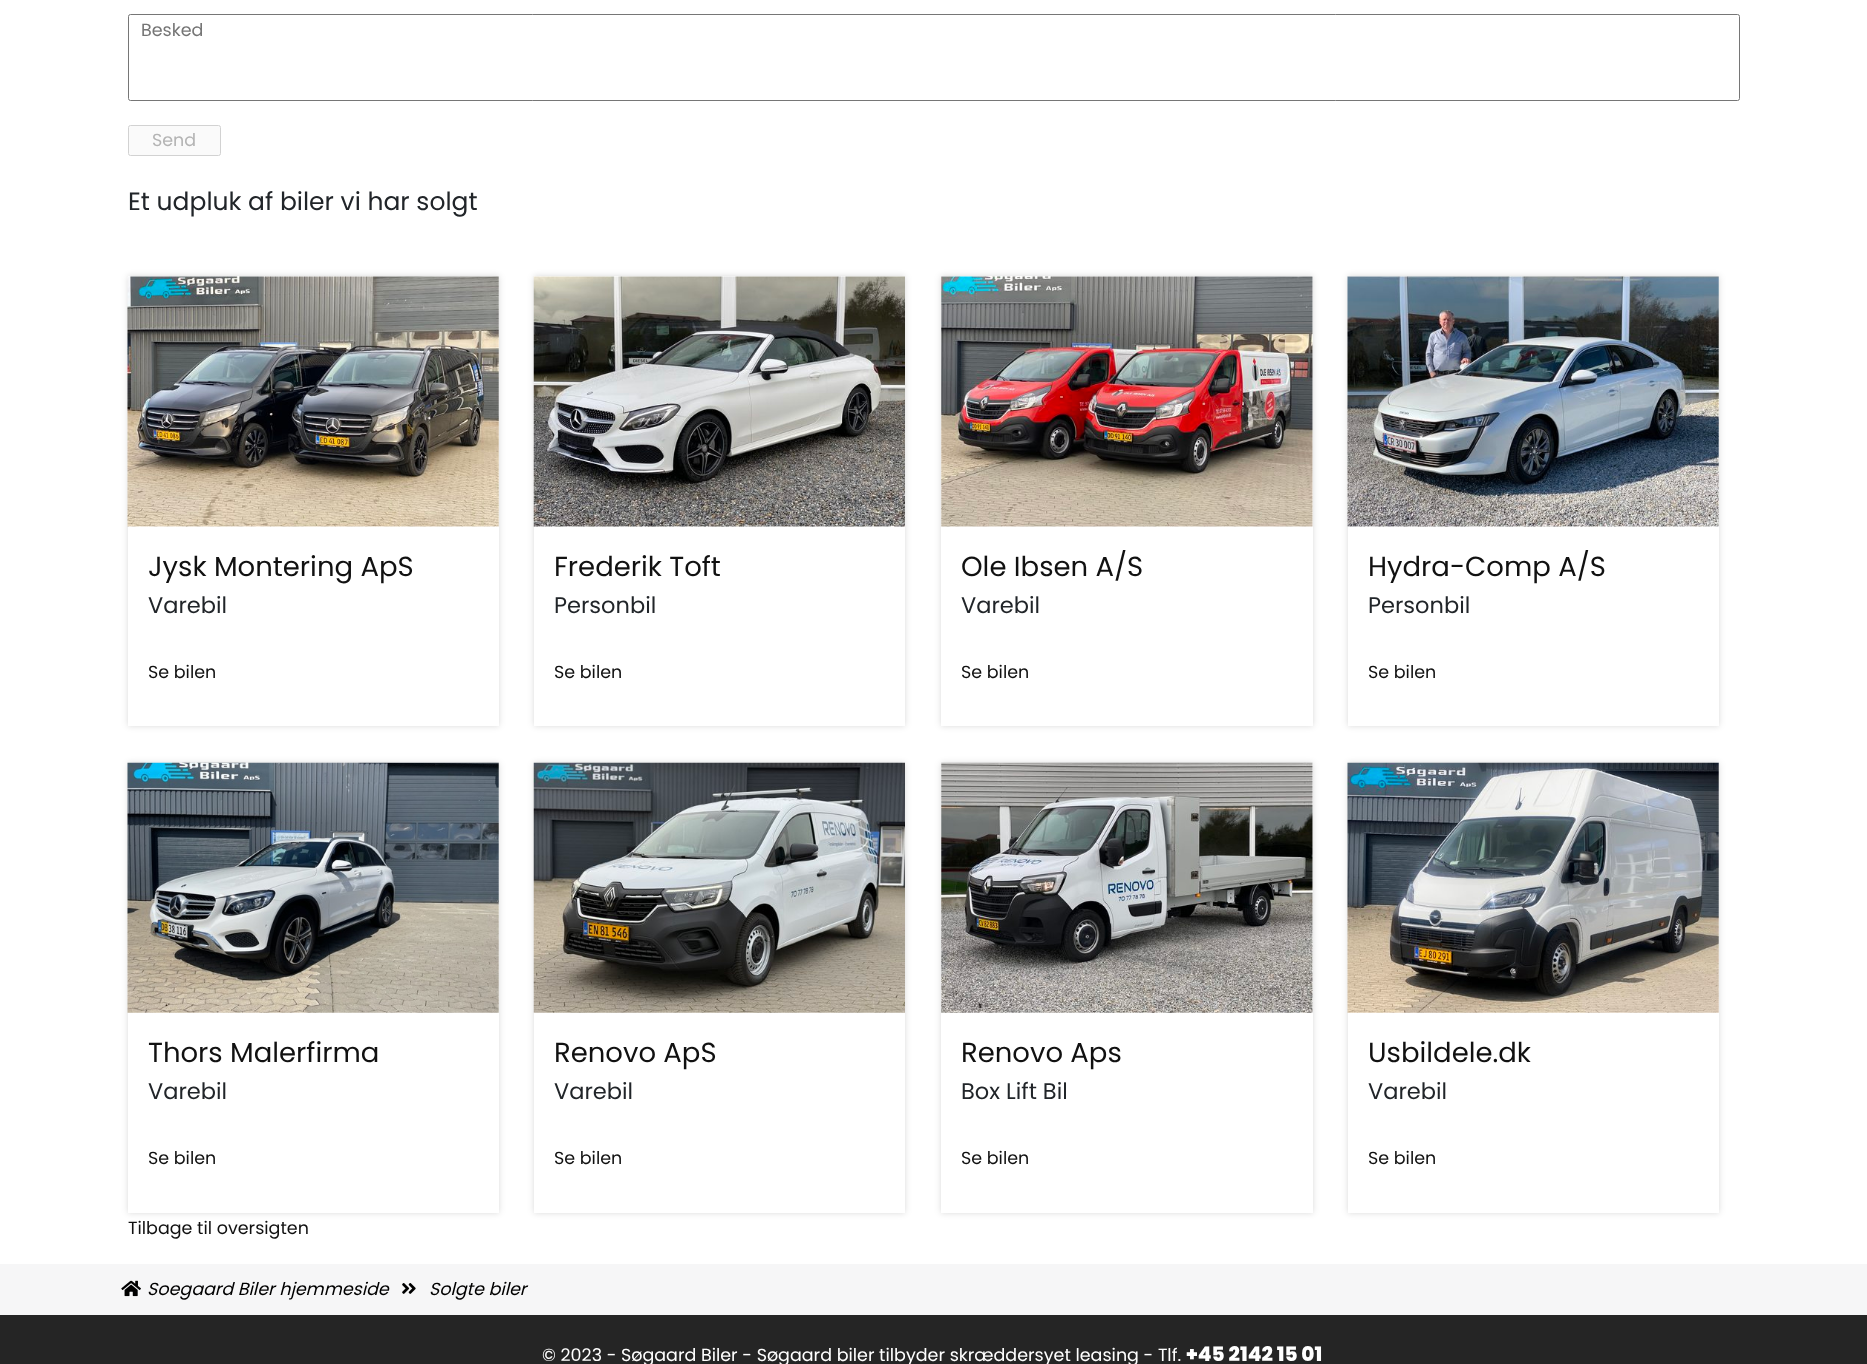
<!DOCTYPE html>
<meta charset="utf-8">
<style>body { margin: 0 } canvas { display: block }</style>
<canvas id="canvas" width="1867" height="1364"></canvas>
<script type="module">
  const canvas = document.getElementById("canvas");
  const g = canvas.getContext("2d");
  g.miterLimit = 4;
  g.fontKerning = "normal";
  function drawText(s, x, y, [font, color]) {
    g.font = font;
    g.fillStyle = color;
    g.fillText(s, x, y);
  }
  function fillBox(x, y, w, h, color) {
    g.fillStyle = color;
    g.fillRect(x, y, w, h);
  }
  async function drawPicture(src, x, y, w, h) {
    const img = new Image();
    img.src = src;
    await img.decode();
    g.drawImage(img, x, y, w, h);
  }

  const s1 = ["17.5px Poppins", "#757575"];
  const s2 = ["17.5px Poppins", "#B4B4B4"];
  const s3 = ["25px Poppins", "#212529"];
  const s4 = ["27.5px Poppins", "#111111"];
  const s5 = ["22.5px Poppins", "#212529"];
  const s6 = ["17.5px Poppins", "#111111"];
  const s7 = ["italic 17.5px Poppins", "#000000"];
  const s8 = ["17.5px Poppins", "#FFFFFF"];
  const s9 = ["800 20px Poppins", "#FFFFFF"];

  fillBox(0, 0, 1867, 1364, "#FFFFFF");
  g.beginPath();
  g.roundRect(128.5, 14.5, 1611, 86, 2);
  g.strokeStyle = "#767676";
  g.stroke();
  drawText("Besked", 141, 36, s1);
  g.fillStyle = "#FAFAFA";
  g.beginPath();
  g.roundRect(128.5, 125.5, 92, 30, 2);
  g.fill();
  g.strokeStyle = "#D2D2D2";
  g.stroke();
  drawText("Send", 152, 146, s2);
  drawText("Et udpluk af biler vi har solgt", 128, 210, s3);
  g.fillStyle = "rgba(0, 0, 0, 0.15)";
  g.filter = "blur(3px)";
  g.beginPath();
  g.rect(128, 276, 371, 450);
  g.fill();
  g.filter = "none";
  fillBox(128, 276, 371, 450, "#FFFFFF");
  await drawPicture("pic1.png", 127, 276, 372, 251);
  drawText("Jysk Montering ApS", 148, 576, s4);
  drawText("Varebil", 148, 613, s5);
  drawText("Se bilen", 148, 678, s6);
  g.fillStyle = "rgba(0, 0, 0, 0.15)";
  g.filter = "blur(3px)";
  g.beginPath();
  g.rect(534, 276, 371, 450);
  g.fill();
  g.filter = "none";
  fillBox(534, 276, 371, 450, "#FFFFFF");
  await drawPicture("pic2.png", 533, 276, 372, 251);
  drawText("Frederik Toft", 554, 576, s4);
  drawText("Personbil", 554, 613, s5);
  drawText("Se bilen", 554, 678, s6);
  g.fillStyle = "rgba(0, 0, 0, 0.15)";
  g.filter = "blur(3px)";
  g.beginPath();
  g.rect(941, 276, 372, 450);
  g.fill();
  g.filter = "none";
  fillBox(941, 276, 372, 450, "#FFFFFF");
  await drawPicture("pic3.png", 941, 276, 372, 251);
  drawText("Ole Ibsen A/S", 961, 576, s4);
  drawText("Varebil", 961, 613, s5);
  drawText("Se bilen", 961, 678, s6);
  g.fillStyle = "rgba(0, 0, 0, 0.15)";
  g.filter = "blur(3px)";
  g.beginPath();
  g.rect(1348, 276, 371, 450);
  g.fill();
  g.filter = "none";
  fillBox(1348, 276, 371, 450, "#FFFFFF");
  await drawPicture("pic4.png", 1347, 276, 372, 251);
  drawText("Hydra-Comp A/S", 1368, 576, s4);
  drawText("Personbil", 1368, 613, s5);
  drawText("Se bilen", 1368, 678, s6);
  g.fillStyle = "rgba(0, 0, 0, 0.15)";
  g.filter = "blur(3px)";
  g.beginPath();
  g.rect(128, 763, 371, 450);
  g.fill();
  g.filter = "none";
  fillBox(128, 763, 371, 450, "#FFFFFF");
  await drawPicture("pic5.png", 127, 762, 372, 251);
  drawText("Thors Malerfirma", 148, 1062, s4);
  drawText("Varebil", 148, 1099, s5);
  drawText("Se bilen", 148, 1164, s6);
  g.fillStyle = "rgba(0, 0, 0, 0.15)";
  g.filter = "blur(3px)";
  g.beginPath();
  g.rect(534, 763, 371, 450);
  g.fill();
  g.filter = "none";
  fillBox(534, 1012, 371, 201, "#FFFFFF");
  await drawPicture("pic6.png", 533, 762, 372, 251);
  drawText("Renovo ApS", 554, 1062, s4);
  drawText("Varebil", 554, 1099, s5);
  drawText("Se bilen", 554, 1164, s6);
  g.fillStyle = "rgba(0, 0, 0, 0.15)";
  g.filter = "blur(3px)";
  g.beginPath();
  g.rect(941, 763, 372, 450);
  g.fill();
  g.filter = "none";
  fillBox(941, 763, 372, 450, "#FFFFFF");
  await drawPicture("pic7.png", 941, 762, 372, 251);
  drawText("Renovo Aps", 961, 1062, s4);
  drawText("Box Lift Bil", 961, 1099, s5);
  drawText("Se bilen", 961, 1164, s6);
  g.fillStyle = "rgba(0, 0, 0, 0.15)";
  g.filter = "blur(3px)";
  g.beginPath();
  g.rect(1348, 763, 371, 450);
  g.fill();
  g.filter = "none";
  fillBox(1348, 763, 371, 450, "#FFFFFF");
  await drawPicture("pic8.png", 1347, 762, 372, 251);
  drawText("Usbildele.dk", 1368, 1062, s4);
  drawText("Varebil", 1368, 1099, s5);
  drawText("Se bilen", 1368, 1164, s6);
  drawText("Tilbage til oversigten", 128, 1234, s6);
  fillBox(0, 1264, 1867, 51, "#F6F6F7");
  await drawPicture("pic9.png", 121, 1280, 20, 17);
  drawText("Soegaard Biler hjemmeside", 147, 1295, s7);
  await drawPicture("pic10.png", 402, 1283, 14, 11);
  drawText("Solgte biler", 429, 1295, s7);
  fillBox(0, 1315, 1867, 49, "#252525");
  drawText("© 2023 - Søgaard Biler - Søgaard biler tilbyder skræddersyet leasing - Tlf.", 542, 1361, s8);
  drawText("+45 2142 15 01", 1186, 1361, s9);
</script>
